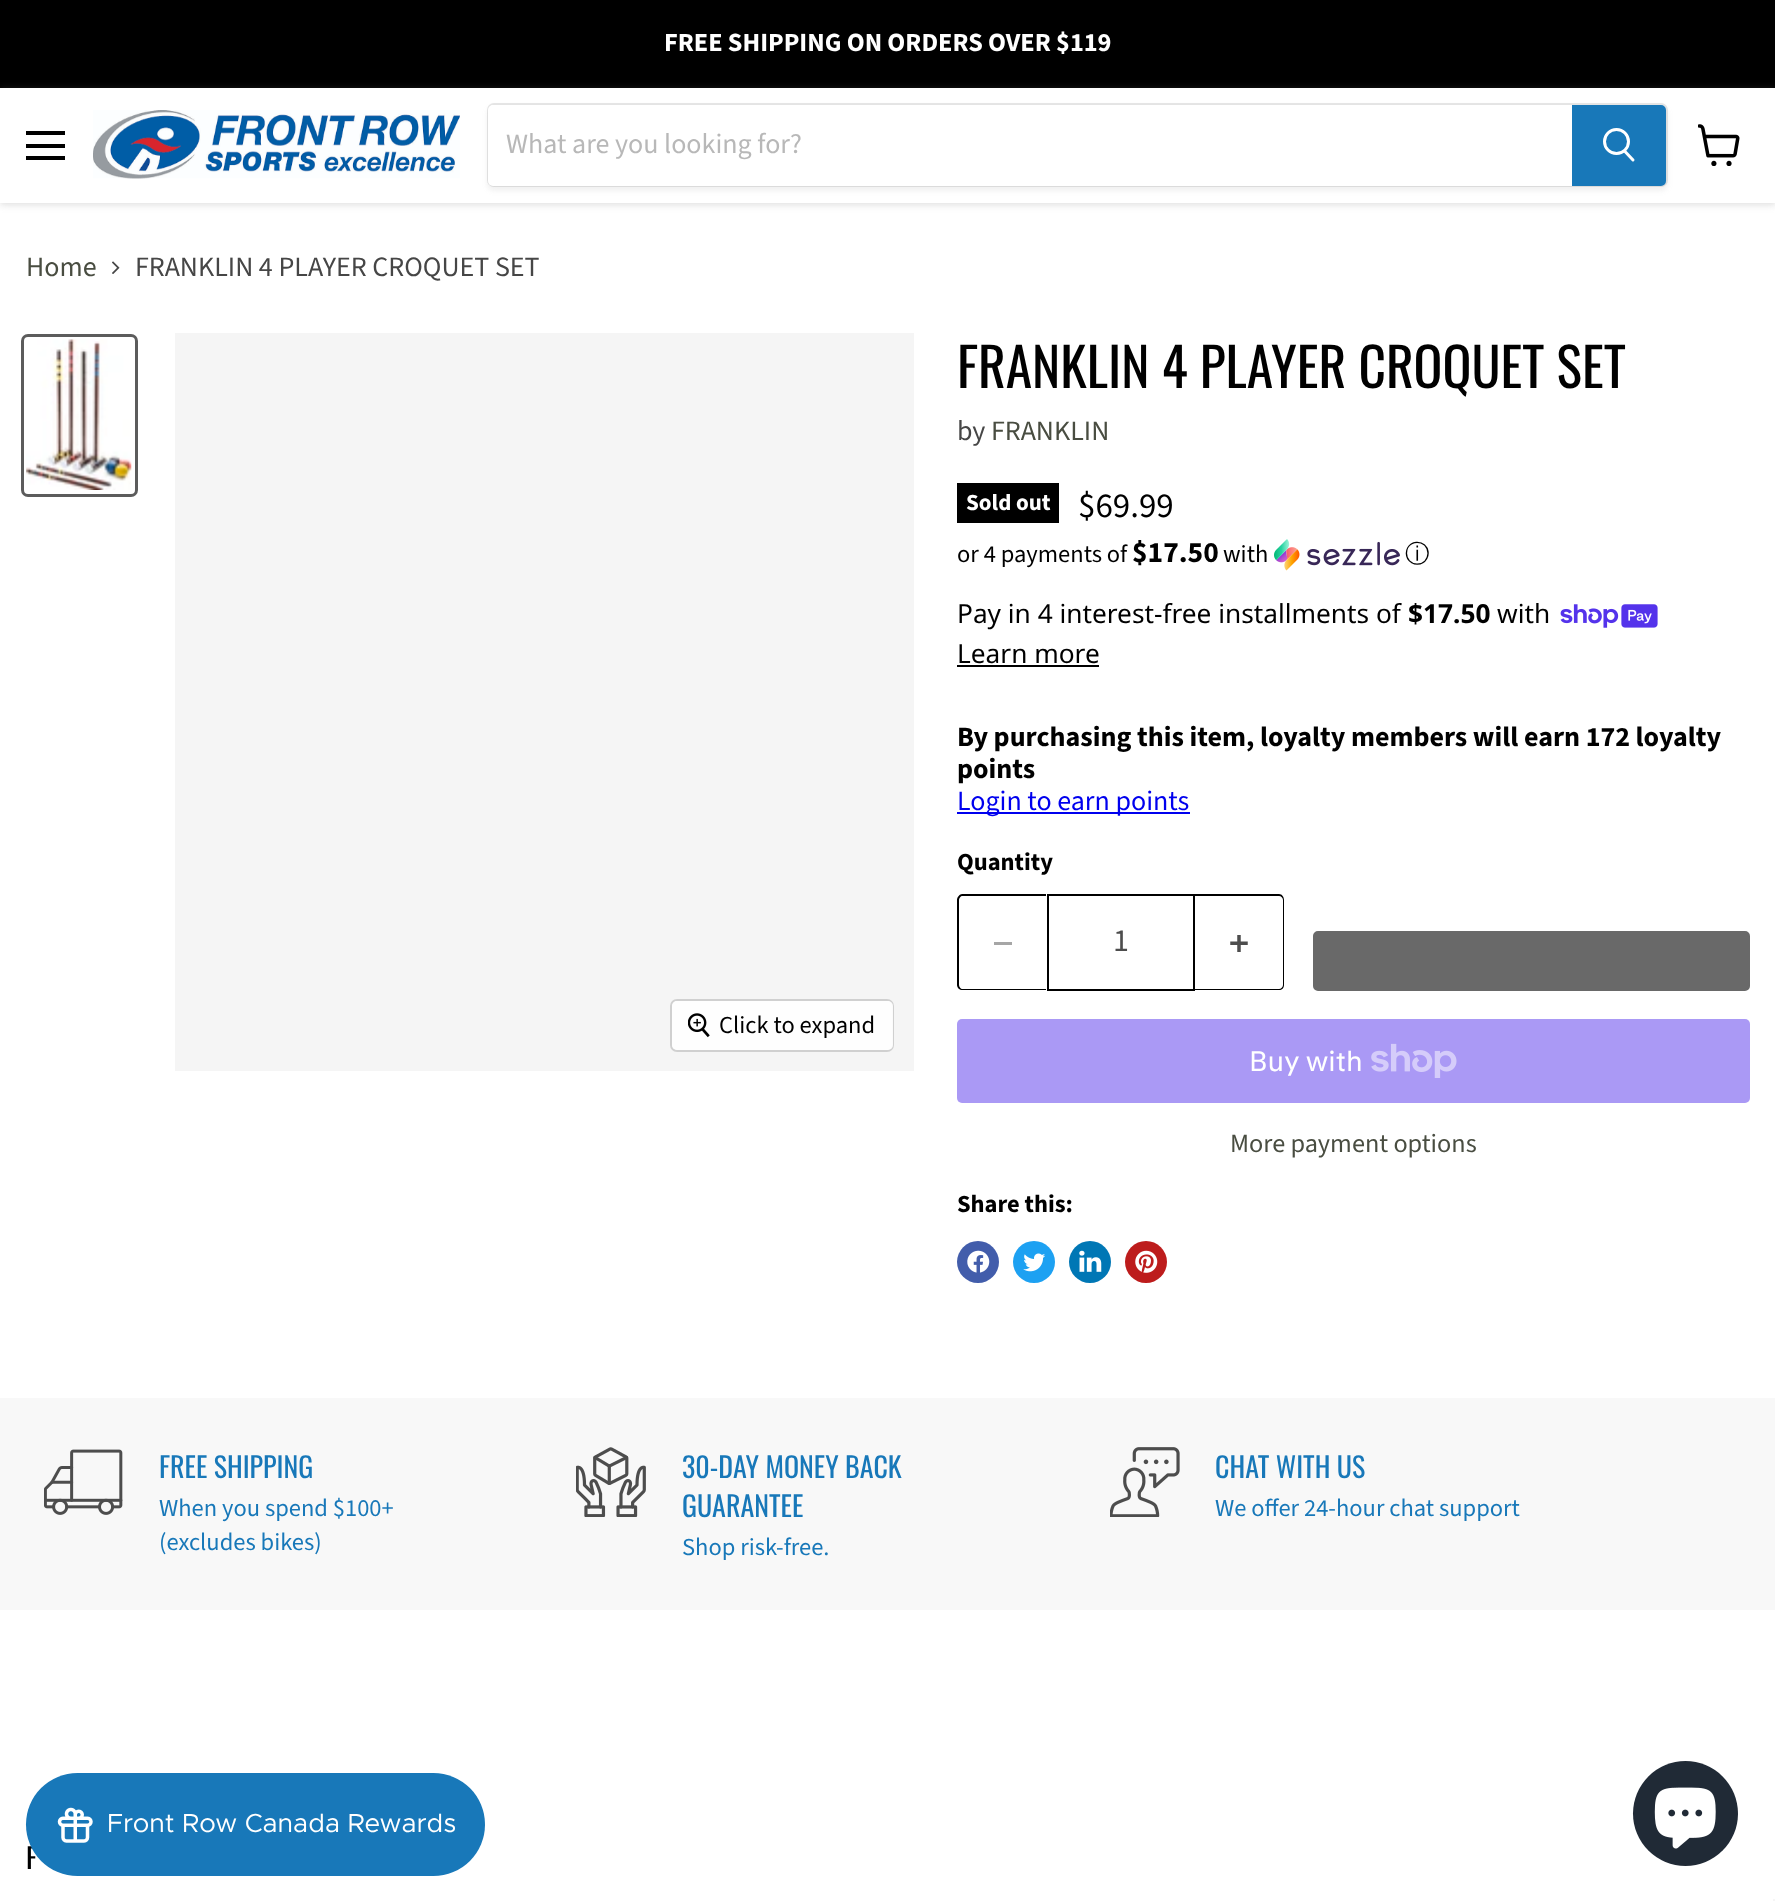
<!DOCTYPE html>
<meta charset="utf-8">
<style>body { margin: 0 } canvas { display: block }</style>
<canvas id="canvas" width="1775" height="1901"></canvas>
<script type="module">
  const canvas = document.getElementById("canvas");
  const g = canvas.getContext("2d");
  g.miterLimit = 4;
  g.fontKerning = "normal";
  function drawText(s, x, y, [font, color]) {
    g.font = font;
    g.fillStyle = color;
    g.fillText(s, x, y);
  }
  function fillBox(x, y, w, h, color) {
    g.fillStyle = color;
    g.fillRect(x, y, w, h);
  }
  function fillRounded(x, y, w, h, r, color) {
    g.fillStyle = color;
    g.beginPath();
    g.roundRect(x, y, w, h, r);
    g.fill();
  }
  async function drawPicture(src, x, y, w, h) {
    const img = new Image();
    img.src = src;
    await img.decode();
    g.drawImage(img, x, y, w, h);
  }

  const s1 = ["bold 26.25px Source Sans Pro", "#FFFFFF"];
  const s2 = ["28px Source Sans Pro", "#B8B8B8"];
  const s3 = ["28px Source Sans Pro", "#494D41"];
  const s4 = ["28px Source Sans Pro", "#464646"];
  const s5 = ["24.5px Source Sans Pro", "#000000"];
  const s6 = ["53.5px Oswald", "#000000"];
  const s7 = ["bold 23px Source Sans Pro", "#FFFFFF"];
  const s8 = ["35px Source Sans Pro", "#000000"];
  const s9 = ["bold 29.5px Source Sans Pro", "#000000"];
  const s10 = ["500 24.5px WenQuanYi Zen Hei", "#000000"];
  const s11 = ["26.25px Noto Sans", "#000000"];
  const s12 = ["bold 26.25px Noto Sans", "#000000"];
  const s13 = ["bold 28px Source Sans Pro", "#000000"];
  const s14 = ["28px Source Sans Pro", "#0000EE"];
  const s15 = ["bold 24.5px Source Sans Pro", "#000000"];
  const s16 = ["32px Source Sans Pro", "#4D4D4D"];
  const s17 = ["28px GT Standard", "#FFFFFF"];
  const s18 = ["26.25px Source Sans Pro", "#494D41"];
  const s19 = ["28px Oswald", "#1878B9"];
  const s20 = ["24.5px Source Sans Pro", "#1878B9"];
  const s21 = ["28px Oswald", "#000000"];
  const s22 = ["26.25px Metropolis", "#FFFFFF"];

  fillBox(0, 0, 1775, 1901, "#FFFFFF");
  fillBox(0, 0, 1775, 88, "#000000");
  drawText("FREE SHIPPING ON ORDERS OVER $119", 664, 51, s1);
  g.save();
  g.beginPath();
  g.moveTo(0, 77);
  g.lineTo(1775, 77);
  g.lineTo(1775, 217);
  g.lineTo(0, 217);
  g.closePath();
  g.moveTo(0, 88);
  g.lineTo(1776, 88);
  g.lineTo(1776, 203);
  g.lineTo(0, 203);
  g.closePath();
  g.clip("evenodd");
  g.fillStyle = "rgba(128, 128, 128, 0.25)";
  g.filter = "blur(3.5px)";
  g.beginPath();
  g.rect(0, 89, 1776, 116);
  g.fill();
  g.filter = "none";
  g.restore();
  fillBox(26, 131, 39, 4, "#000000");
  fillBox(26, 144, 39, 4, "#000000");
  fillBox(26, 156, 39, 4, "#000000");
  await drawPicture("pic1.png", 93, 110, 367, 69);
  g.fillStyle = "rgba(128, 128, 128, 0.11)";
  g.filter = "blur(2.5px)";
  g.beginPath();
  g.roundRect(487, 107, 1181, 84, 7);
  g.fill();
  g.filter = "none";
  g.beginPath();
  g.roundRect(488, 104, 1179, 82, 6);
  g.strokeStyle = "rgba(128, 128, 128, 0.2)";
  g.lineWidth = 2;
  g.stroke();
  g.fillStyle = "#FFFFFF";
  g.beginPath();
  g.roundRect(488, 105, 1084, 81, [5, 0, 0, 5]);
  g.fill();
  drawText("What are you looking for?", 506, 153, s2);
  g.fillStyle = "#1878B9";
  g.beginPath();
  g.roundRect(1573, 106, 92, 79, [0, 4, 4, 0]);
  g.fill();
  g.strokeStyle = "#1878B9";
  g.stroke();
  g.beginPath();
  g.moveTo(1633, 160);
  g.lineTo(1625, 151.5);
  g.strokeStyle = "#FFFFFF";
  g.lineWidth = 3;
  g.lineCap = "round";
  g.stroke();
  g.beginPath();
  g.arc(1616.5, 141.5, 12, 0, Math.PI * 2);
  g.stroke();
  await drawPicture("pic2.png", 1698, 124, 42, 42);
  drawText("Home", 26, 276, s3);
  await drawPicture("pic3.png", 112, 261, 8, 13);
  drawText("FRANKLIN 4 PLAYER CROQUET SET", 135, 276, s4);
  g.beginPath();
  g.roundRect(22.5, 335.5, 114, 160, 5.5);
  g.strokeStyle = "#5C5C5C";
  g.stroke();
  await drawPicture("pic4.png", 26, 339, 106, 151);
  fillBox(175, 333, 739, 738, "#F5F5F5");
  g.beginPath();
  g.roundRect(671, 1000, 222, 51, 6);
  g.strokeStyle = "#D0D0D0";
  g.lineWidth = 2;
  g.stroke();
  fillRounded(672, 1001, 221, 49, 5, "rgba(255, 255, 255, 0.9)");
  await drawPicture("pic5.png", 688, 1013, 22, 25);
  drawText("Click to expand", 719, 1033, s5);
  drawText("FRANKLIN 4 PLAYER CROQUET SET", 957, 388, s6);
  drawText("by", 957, 440, s4);
  drawText("FRANKLIN", 991, 440, s3);
  fillBox(957, 483, 102, 40, "#000000");
  drawText("Sold out", 966, 510, s7);
  drawText("$69.99", 1078, 517, s8);
  drawText("or 4 payments of", 957, 562, s5);
  drawText("$17.50", 1132, 562, s9);
  drawText("with", 1223, 562, s5);
  await drawPicture("pic6.png", 1274, 539, 126, 32);
  drawText("ⓘ", 1405, 562, s10);
  drawText("Pay in 4 interest-free installments of", 957, 623, s11);
  drawText("$17.50", 1408, 623, s12);
  drawText("with", 1497, 623, s11);
  await drawPicture("pic7.png", 1560, 604, 98, 24);
  drawText("Learn more", 957, 663, s11);
  fillBox(957, 665, 142, 2, "#000000");
  drawText("By purchasing this item, loyalty members will earn 172 loyalty", 957, 746, s13);
  drawText("points", 957, 778, s13);
  fillBox(957, 812, 233, 2, "#0000EE");
  drawText("Login to earn points", 957, 810, s14);
  drawText("Quantity", 957, 870, s15);
  g.beginPath();
  g.moveTo(962, 894);
  g.lineTo(1046, 894);
  g.lineTo(1046, 990);
  g.lineTo(962, 990);
  g.bezierCurveTo(960, 990, 957, 988, 957, 985);
  g.lineTo(957, 900);
  g.bezierCurveTo(957, 897, 960, 894, 962, 894);
  g.closePath();
  g.moveTo(962, 896);
  g.lineTo(1046, 896);
  g.lineTo(1046, 989);
  g.lineTo(962, 989);
  g.bezierCurveTo(961, 989, 959, 987, 959, 985);
  g.lineTo(959, 900);
  g.bezierCurveTo(959, 898, 961, 896, 962, 896);
  g.closePath();
  g.fill("evenodd");
  fillBox(994, 942, 18, 3, "#A6A6A6");
  g.strokeStyle = "#000000";
  g.strokeRect(1048, 895, 146, 95);
  drawText("1", 1113, 951, s16);
  g.fillStyle = "#000000";
  g.beginPath();
  g.moveTo(1195, 894);
  g.lineTo(1279, 894);
  g.bezierCurveTo(1282, 894, 1284, 897, 1284, 900);
  g.lineTo(1284, 985);
  g.bezierCurveTo(1284, 988, 1282, 990, 1279, 990);
  g.lineTo(1195, 990);
  g.closePath();
  g.moveTo(1195, 896);
  g.lineTo(1279, 896);
  g.bezierCurveTo(1281, 896, 1283, 898, 1283, 900);
  g.lineTo(1283, 985);
  g.bezierCurveTo(1283, 987, 1281, 989, 1279, 989);
  g.lineTo(1195, 989);
  g.closePath();
  g.fill("evenodd");
  await drawPicture("pic8.png", 1230, 935, 18, 17);
  g.fillStyle = "#696969";
  g.beginPath();
  g.roundRect(1314, 932, 435, 58, 4);
  g.fill();
  g.strokeStyle = "#696969";
  g.stroke();
  fillRounded(957, 1019, 793, 84, 5, "#AA99F5");
  drawText("Buy with", 1249, 1071, s17);
  await drawPicture("pic9.png", 1371, 1043, 86, 35);
  drawText("More payment options", 1230, 1152, s18);
  drawText("Share this:", 957, 1212, s15);
  g.fillStyle = "#425DAB";
  g.beginPath();
  g.arc(978, 1262, 21, 0, Math.PI * 2);
  g.fill();
  await drawPicture("pic10.png", 967, 1250, 23, 23);
  g.fillStyle = "#1DA1F2";
  g.beginPath();
  g.arc(1034, 1262, 21, 0, Math.PI * 2);
  g.fill();
  await drawPicture("pic11.png", 1023, 1253, 23, 19);
  g.fillStyle = "#0077B5";
  g.beginPath();
  g.arc(1090, 1262, 21, 0, Math.PI * 2);
  g.fill();
  await drawPicture("pic12.png", 1079, 1250, 23, 22);
  g.fillStyle = "#BD1C1C";
  g.beginPath();
  g.arc(1146, 1262, 21, 0, Math.PI * 2);
  g.fill();
  await drawPicture("pic13.png", 1135, 1250, 23, 23);
  fillBox(0, 1398, 1775, 212, "#F8F8F8");
  await drawPicture("pic14.png", 44, 1449, 79, 66);
  drawText("FREE SHIPPING", 159, 1478, s19);
  drawText("When you spend $100+", 159, 1516, s20);
  drawText("(excludes bikes)", 159, 1550, s20);
  await drawPicture("pic15.png", 576, 1447, 70, 70);
  drawText("30-DAY MONEY BACK", 682, 1478, s19);
  drawText("GUARANTEE", 682, 1517, s19);
  drawText("Shop risk-free.", 682, 1555, s20);
  await drawPicture("pic16.png", 1110, 1447, 70, 70);
  drawText("CHAT WITH US", 1215, 1478, s19);
  drawText("We offer 24-hour chat support", 1215, 1516, s20);
  drawText("F", 26, 1869, s21);
  fillRounded(26, 1773, 459, 103, 51.5, "#1878B9");
  await drawPicture("pic17.png", 57, 1807, 36, 36);
  drawText("Front Row Canada Rewards", 107, 1832, s22);
  g.fillStyle = "#202A36";
  g.beginPath();
  g.arc(1685.5, 1813.5, 52.5, 0, Math.PI * 2);
  g.fill();
  await drawPicture("pic18.png", 1654, 1787, 62, 62);
  fillBox(1773, 1899, 2, 2, "#F5F5F5");
</script>
